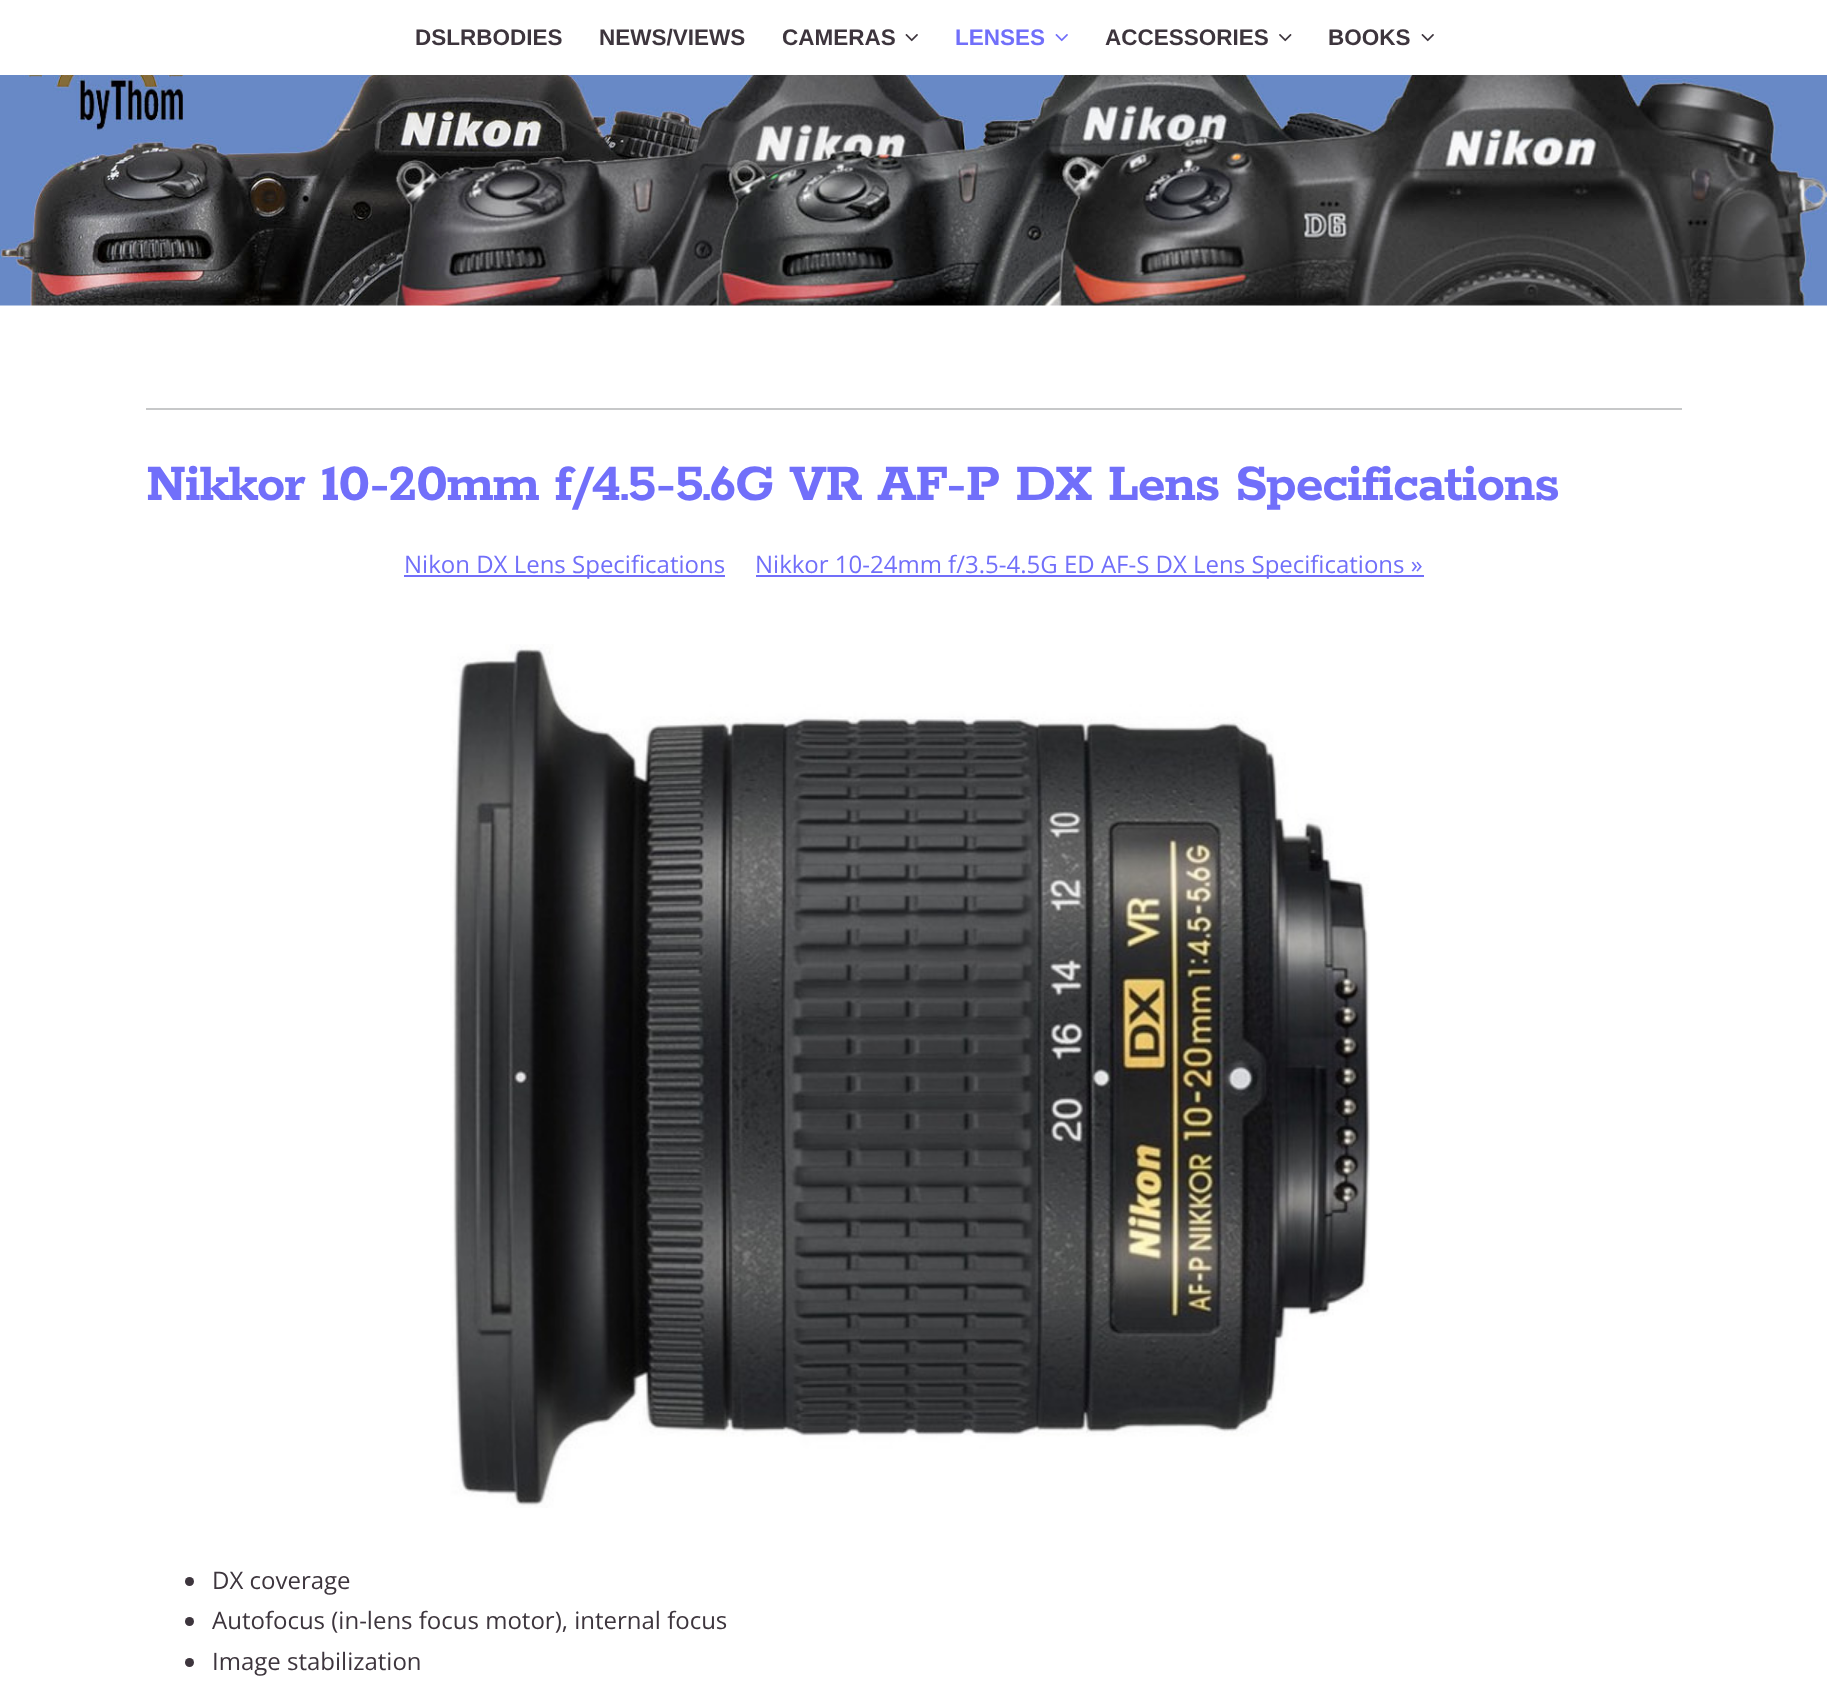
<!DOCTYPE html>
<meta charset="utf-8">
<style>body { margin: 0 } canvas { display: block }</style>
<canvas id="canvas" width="1827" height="1688"></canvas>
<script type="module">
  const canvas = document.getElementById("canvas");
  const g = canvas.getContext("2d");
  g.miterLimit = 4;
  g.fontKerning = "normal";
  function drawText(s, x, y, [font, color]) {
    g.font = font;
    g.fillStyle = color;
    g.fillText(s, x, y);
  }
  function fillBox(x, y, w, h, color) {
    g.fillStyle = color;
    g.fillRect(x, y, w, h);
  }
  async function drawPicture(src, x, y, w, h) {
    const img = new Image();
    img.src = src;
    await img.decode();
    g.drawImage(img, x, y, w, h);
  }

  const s1 = ["bold 22.5px Liberation Sans", "#3D353D"];
  const s2 = ["bold 22.5px Liberation Sans", "#716FFA"];
  const s3 = ["bold 57px Rokkitt", "#716FFA"];
  const s4 = ["24px Open Sans", "#716FFA"];
  const s5 = ["24px Open Sans", "#3D353D"];

  fillBox(0, 0, 1827, 1688, "#FFFFFF");
  drawText("DSLRBODIES", 415, 45, s1);
  drawText("NEWS/VIEWS", 599, 45, s1);
  drawText("CAMERAS", 782, 45, s1);
  await drawPicture("pic1.png", 905, 34, 13, 8);
  drawText("LENSES", 955, 45, s2);
  await drawPicture("pic2.png", 1055, 34, 13, 8);
  drawText("ACCESSORIES", 1105, 45, s1);
  await drawPicture("pic3.png", 1279, 34, 13, 8);
  drawText("BOOKS", 1328, 45, s1);
  await drawPicture("pic1.png", 1421, 34, 13, 8);
  await drawPicture("pic4.png", 0, 75, 1827, 231);
  fillBox(146, 408, 1536, 2, "#C7C8C9");
  g.letterSpacing = "-1.12px";
  drawText("Nikkor 10-20mm f/4.5-5.6G VR AF-P DX Lens Specifications", 146, 500, s3);
  fillBox(404, 575, 321, 2, "#716FFA");
  g.letterSpacing = "0px";
  drawText("Nikon DX Lens Specifications", 404, 573, s4);
  fillBox(756, 575, 668, 2, "#716FFA");
  drawText("Nikkor 10-24mm f/3.5-4.5G ED AF-S DX Lens Specifications »", 755, 573, s4);
  await drawPicture("pic5.png", 450, 644, 920, 864);
  g.fillStyle = "#3D353D";
  g.beginPath();
  g.arc(189.5, 1581.5, 4.5, 0, Math.PI * 2);
  g.fill();
  drawText("DX coverage", 212, 1589, s5);
  g.beginPath();
  g.arc(189.5, 1621.5, 4.5, 0, Math.PI * 2);
  g.fill();
  drawText("Autofocus (in-lens focus motor), internal focus", 212, 1629, s5);
  g.beginPath();
  g.arc(189.5, 1662.5, 4.5, 0, Math.PI * 2);
  g.fill();
  drawText("Image stabilization", 212, 1670, s5);
</script>
